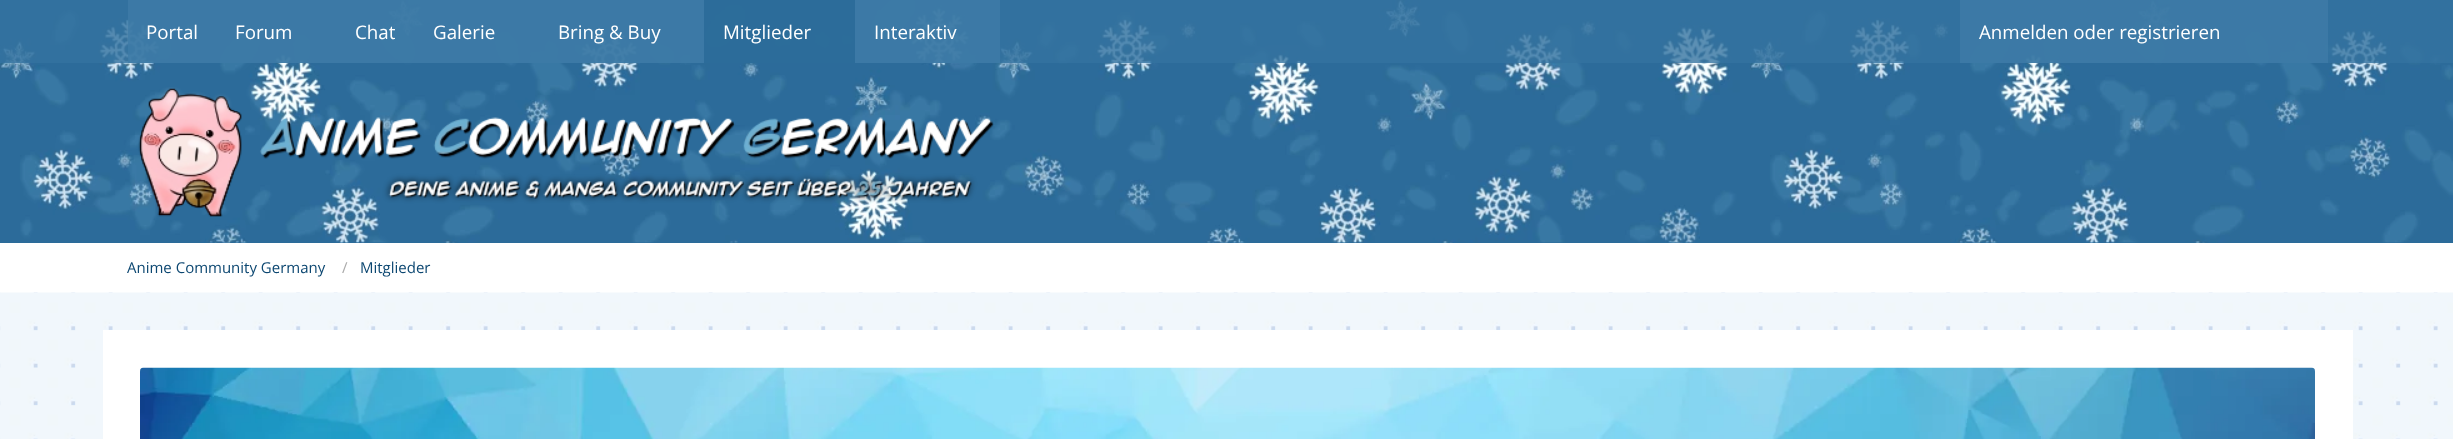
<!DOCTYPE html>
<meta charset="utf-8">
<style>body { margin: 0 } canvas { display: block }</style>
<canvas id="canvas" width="2453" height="439"></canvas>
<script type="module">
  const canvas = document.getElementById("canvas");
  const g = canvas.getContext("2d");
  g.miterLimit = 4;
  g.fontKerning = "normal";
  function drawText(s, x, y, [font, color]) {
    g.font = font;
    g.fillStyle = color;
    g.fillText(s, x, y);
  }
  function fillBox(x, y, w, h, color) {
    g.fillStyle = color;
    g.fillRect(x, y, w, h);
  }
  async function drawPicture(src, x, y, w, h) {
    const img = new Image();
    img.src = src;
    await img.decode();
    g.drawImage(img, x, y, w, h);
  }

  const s1 = ["18.75px Open Sans", "#FFFFFF"];
  const s2 = ["15px Open Sans", "#0C4771"];
  const s3 = ["15px Open Sans", "#AAAAAA"];

  fillBox(0, 0, 2453, 439, "#FFFFFF");
  fillBox(0, 242, 2453, 1, "#2B6B99");
  await drawPicture("pic1.png", 0, 0, 2453, 243);
  fillBox(0, 0, 2453, 63, "rgba(52, 115, 160, 0.8)");
  fillBox(128, 0, 88, 63, "rgba(62, 124, 168, 0.8)");
  drawText("Portal", 146, 39, s1);
  fillBox(216, 0, 120, 63, "rgba(62, 124, 168, 0.8)");
  drawText("Forum", 235, 39, s1);
  fillBox(336, 0, 78, 63, "rgba(62, 124, 168, 0.8)");
  drawText("Chat", 355, 39, s1);
  fillBox(414, 0, 125, 63, "rgba(62, 124, 168, 0.8)");
  drawText("Galerie", 433, 39, s1);
  fillBox(539, 0, 165, 63, "rgba(62, 124, 168, 0.8)");
  drawText("Bring & Buy", 558, 39, s1);
  fillBox(704, 0, 151, 63, "rgba(43, 107, 153, 0.8)");
  drawText("Mitglieder", 723, 39, s1);
  fillBox(855, 0, 145, 63, "rgba(62, 124, 168, 0.8)");
  drawText("Interaktiv", 874, 39, s1);
  fillBox(1960, 0, 280, 63, "rgba(62, 124, 168, 0.8)");
  drawText("Anmelden oder registrieren", 1979, 39, s1);
  fillBox(2240, 0, 88, 63, "rgba(62, 124, 168, 0.8)");
  await drawPicture("pic2.png", 138, 87, 856, 130);
  drawText("Anime Community Germany", 127, 273, s2);
  drawText("/", 342, 273, s3);
  drawText("Mitglieder", 360, 273, s2);
  await drawPicture("pic3.png", 0, 292, 2453, 147);
  fillBox(103, 330, 2250, 109, "#FFFFFF");
  await drawPicture("pic4.png", 140, 367, 2175, 72);
</script>
